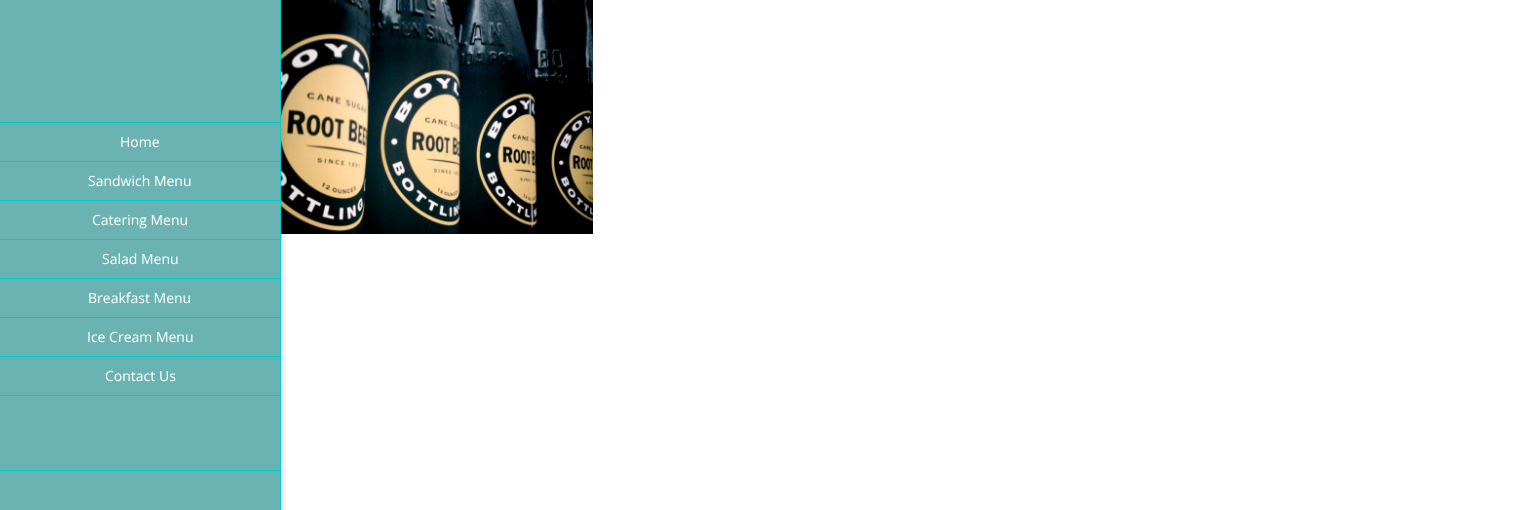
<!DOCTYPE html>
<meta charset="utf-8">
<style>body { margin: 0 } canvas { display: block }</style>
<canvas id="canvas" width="1527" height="510"></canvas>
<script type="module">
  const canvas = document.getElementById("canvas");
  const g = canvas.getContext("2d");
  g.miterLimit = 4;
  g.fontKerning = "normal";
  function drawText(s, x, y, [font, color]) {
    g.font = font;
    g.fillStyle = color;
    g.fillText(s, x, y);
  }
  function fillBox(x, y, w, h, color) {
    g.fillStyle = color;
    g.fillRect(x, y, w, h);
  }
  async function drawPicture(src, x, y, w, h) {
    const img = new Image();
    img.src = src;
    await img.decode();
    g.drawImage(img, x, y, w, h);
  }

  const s1 = ["14px Open Sans", "#FFFFFF"];

  fillBox(0, 0, 1527, 510, "#FFFFFF");
  await drawPicture("pic1.png", 281, 0, 312, 234);
  g.fillStyle = "rgba(0, 0, 0, 0.08)";
  g.filter = "blur(2px)";
  g.beginPath();
  g.rect(4, 0, 281, 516);
  g.fill();
  g.filter = "none";
  fillBox(0, 0, 280, 510, "#6AB3B2");
  fillBox(280, 0, 1, 510, "#00CCCC");
  fillBox(0, 122, 280, 1, "#00CCCC");
  fillBox(0, 161, 280, 1, "#00CCCC");
  drawText("Home", 120, 147, s1);
  fillBox(0, 200, 280, 1, "#00CCCC");
  drawText("Sandwich Menu", 88, 186, s1);
  fillBox(0, 239, 280, 1, "#00CCCC");
  drawText("Catering Menu", 92, 225, s1);
  fillBox(0, 278, 280, 1, "#00CCCC");
  drawText("Salad Menu", 102, 264, s1);
  fillBox(0, 317, 280, 1, "#00CCCC");
  drawText("Breakfast Menu", 88, 303, s1);
  fillBox(0, 356, 280, 1, "#00CCCC");
  drawText("Ice Cream Menu", 87, 342, s1);
  fillBox(0, 395, 280, 1, "#00CCCC");
  drawText("Contact Us", 105, 381, s1);
  fillBox(0, 470, 280, 1, "#00CCCC");
</script>
